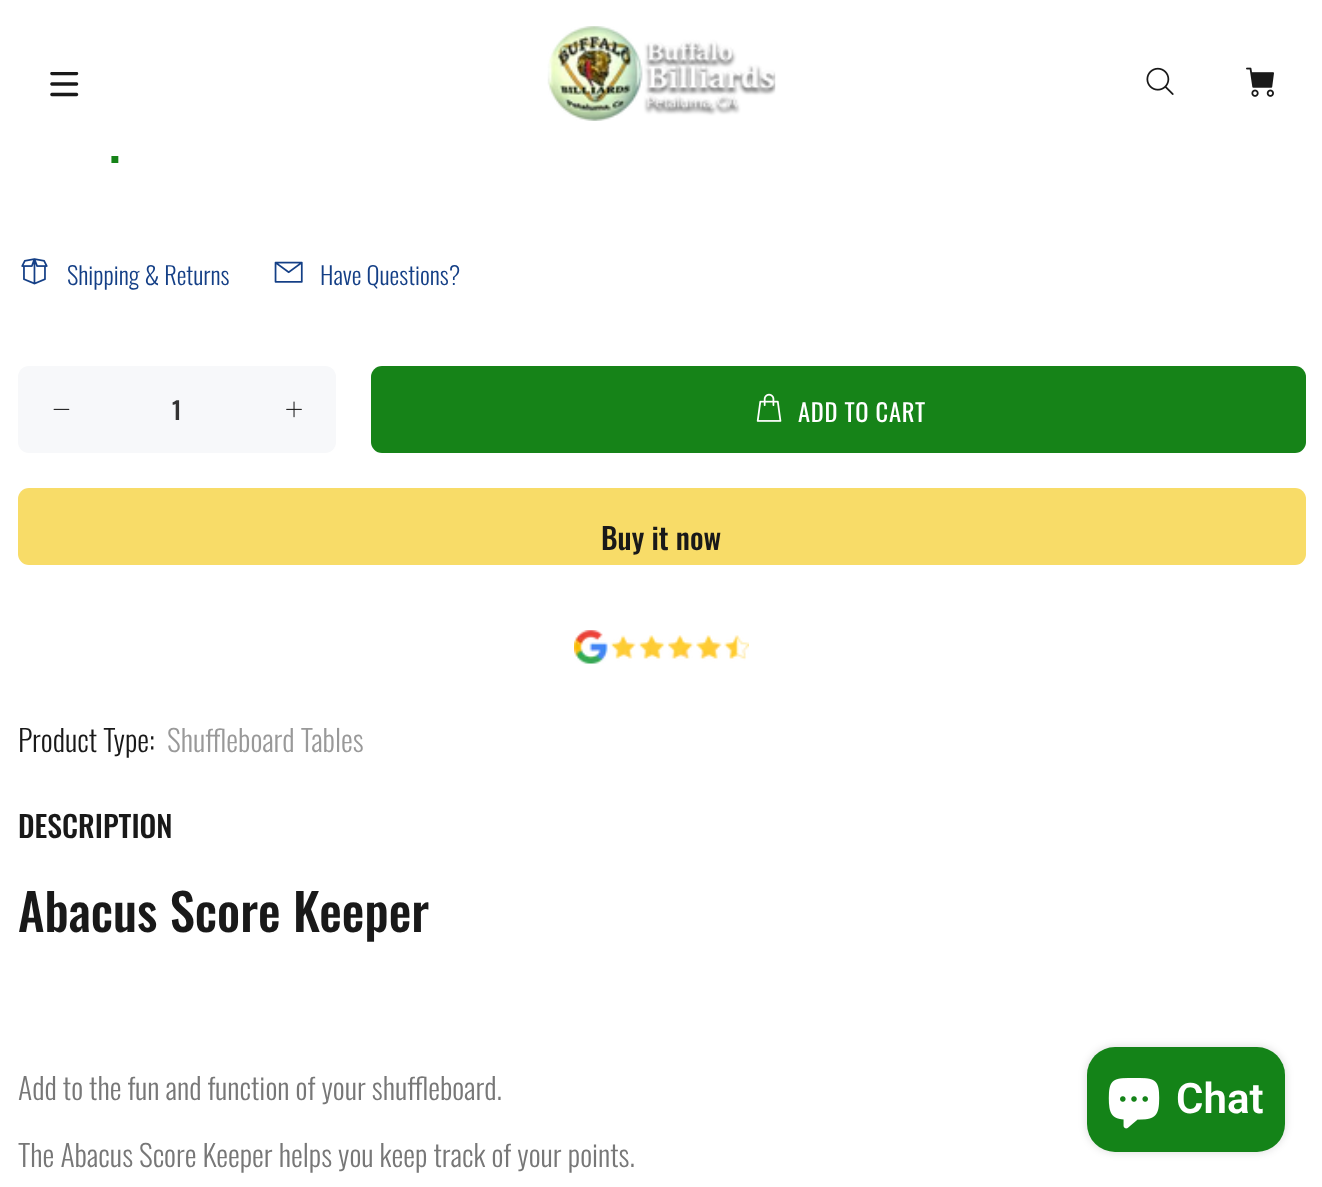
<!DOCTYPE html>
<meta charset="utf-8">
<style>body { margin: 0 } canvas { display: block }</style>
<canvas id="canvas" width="1322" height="1187"></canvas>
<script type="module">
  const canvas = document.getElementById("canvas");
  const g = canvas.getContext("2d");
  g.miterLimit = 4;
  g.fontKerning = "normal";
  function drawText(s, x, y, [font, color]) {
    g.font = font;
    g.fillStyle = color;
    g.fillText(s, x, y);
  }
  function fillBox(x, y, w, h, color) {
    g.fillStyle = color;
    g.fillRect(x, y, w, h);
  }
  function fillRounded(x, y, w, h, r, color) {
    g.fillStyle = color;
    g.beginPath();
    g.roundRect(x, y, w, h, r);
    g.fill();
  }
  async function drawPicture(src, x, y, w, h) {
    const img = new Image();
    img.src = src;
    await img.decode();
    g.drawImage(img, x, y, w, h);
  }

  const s1 = ["500 52px Oswald", "#168318"];
  const s2 = ["300 24.5px Oswald", "#143F86"];
  const s3 = ["500 24.5px Oswald", "#333333"];
  const s4 = ["24.5px Oswald", "#FFFFFF"];
  const s5 = ["500 29.75px Oswald", "#191919"];
  const s6 = ["300 29.75px Oswald", "#191919"];
  const s7 = ["300 29.75px Oswald", "#999999"];
  const s8 = ["500 50.75px Oswald", "#191919"];
  const s9 = ["300 29.75px Oswald", "#777777"];
  const s10 = ["600 42px Roboto", "#FFFFFF"];

  fillBox(0, 0, 1322, 1187, "#FFFFFF");
  drawText(".", 109, 163, s1);
  fillBox(111, 155, 8, 1, "#FFFFFF");
  await drawPicture("pic1.png", 50, 72, 29, 25);
  await drawPicture("pic2.png", 547, 26, 229, 95);
  await drawPicture("pic3.png", 1146, 67, 28, 28);
  await drawPicture("pic4.png", 1246, 67, 28, 30);
  await drawPicture("pic5.png", 21, 258, 27, 27);
  drawText("Shipping & Returns", 67, 285, s2);
  await drawPicture("pic6.png", 274, 261, 29, 22);
  drawText("Have Questions?", 320, 285, s2);
  fillRounded(18, 366, 318, 87, 11, "#F7F8FA");
  await drawPicture("pic7.png", 53, 408, 17, 2);
  drawText("1", 172, 420, s3);
  await drawPicture("pic8.png", 286, 401, 16, 17);
  fillRounded(371, 366, 935, 87, 11, "#168318");
  await drawPicture("pic9.png", 756, 393, 26, 29);
  g.letterSpacing = "0.75px";
  drawText("ADD TO CART", 798, 422, s4);
  fillRounded(18, 488, 1288, 77, 11, "#F8DC68");
  g.letterSpacing = "0px";
  drawText("Buy it now", 601, 550, s5);
  await drawPicture("pic10.png", 574, 630, 175, 34);
  drawText("Product Type:", 18, 752, s6);
  drawText("Shuffleboard Tables", 167, 752, s7);
  drawText("DESCRIPTION", 18, 838, s5);
  drawText("Abacus Score Keeper", 18, 932, s8);
  drawText("Add to the fun and function of your shuffleboard.", 18, 1100, s9);
  drawText("The Abacus Score Keeper helps you keep track of your points.", 18, 1167, s9);
  g.fillStyle = "rgba(0, 0, 0, 0.15)";
  g.filter = "blur(4.5px)";
  g.beginPath();
  g.roundRect(1087, 1047, 198, 105, 28);
  g.fill();
  g.filter = "none";
  fillRounded(1087, 1047, 198, 105, 28, "#148318");
  await drawPicture("pic11.png", 1108, 1078, 52, 51);
  drawText("Chat", 1176, 1113, s10);
</script>
